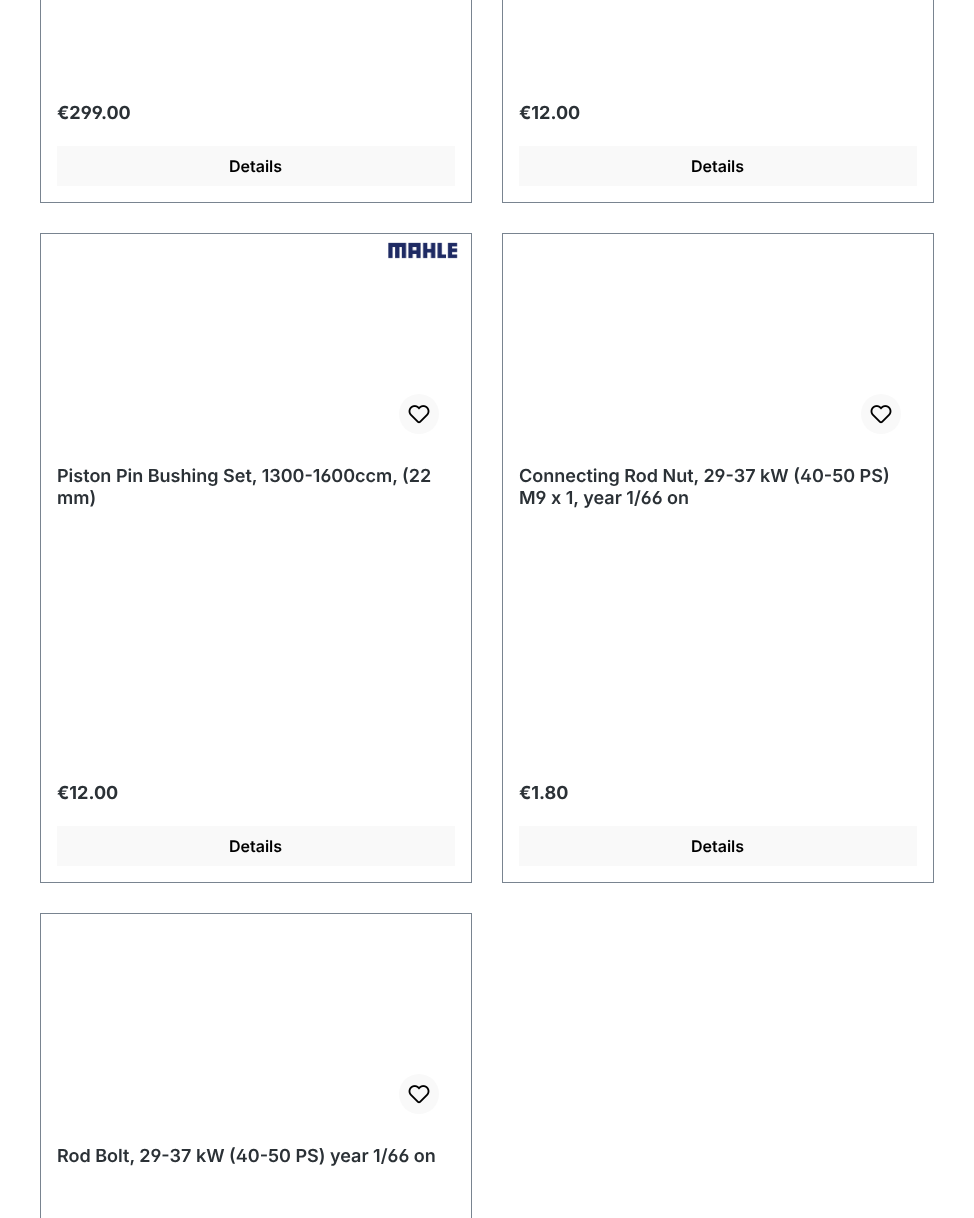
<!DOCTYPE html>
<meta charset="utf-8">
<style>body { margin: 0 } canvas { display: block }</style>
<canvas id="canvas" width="974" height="1218"></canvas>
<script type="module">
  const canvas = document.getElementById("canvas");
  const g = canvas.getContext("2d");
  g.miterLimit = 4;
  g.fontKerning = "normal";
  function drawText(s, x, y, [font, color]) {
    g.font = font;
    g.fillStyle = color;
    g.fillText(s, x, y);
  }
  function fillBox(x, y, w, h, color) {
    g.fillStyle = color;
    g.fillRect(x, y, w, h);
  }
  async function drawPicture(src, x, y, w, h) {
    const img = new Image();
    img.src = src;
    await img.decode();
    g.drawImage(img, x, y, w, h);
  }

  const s1 = ["bold 18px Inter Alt", "#2B3136"];
  const s2 = ["600 16px Inter", "#000000"];
  const s3 = ["bold 18px Inter", "#2B3136"];
  const s4 = ["600 18px Inter Alt", "#2B3136"];
  const s5 = ["600 18px Inter", "#2B3136"];

  fillBox(0, 0, 974, 1218, "#FFFFFF");
  g.strokeStyle = "#798490";
  g.strokeRect(40.5, -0.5, 431, 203);
  drawText("€299.00", 57, 119, s1);
  fillBox(57, 146, 398, 40, "#F9F9F9");
  drawText("Details", 229, 172, s2);
  g.strokeRect(502.5, -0.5, 431, 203);
  drawText("€12.00", 519, 119, s3);
  fillBox(519, 146, 398, 40, "#F9F9F9");
  drawText("Details", 691, 172, s2);
  g.strokeRect(40.5, 233.5, 431, 649);
  await drawPicture("pic1.png", 388, 242, 70, 17);
  g.fillStyle = "#F9F9F9";
  g.beginPath();
  g.arc(419, 414, 20, 0, Math.PI * 2);
  g.fill();
  await drawPicture("pic2.png", 408, 405, 22, 19);
  drawText("Piston Pin Bushing Set, 1300-1600ccm, (22", 57, 482, s4);
  drawText("mm)", 57, 504, s5);
  drawText("€12.00", 57, 799, s3);
  fillBox(57, 826, 398, 40, "#F9F9F9");
  drawText("Details", 229, 852, s2);
  g.strokeRect(502.5, 233.5, 431, 649);
  g.fillStyle = "#F9F9F9";
  g.beginPath();
  g.arc(881, 414, 20, 0, Math.PI * 2);
  g.fill();
  await drawPicture("pic2.png", 870, 405, 22, 19);
  drawText("Connecting Rod Nut, 29-37 kW (40-50 PS)", 519, 482, s4);
  drawText("M9 x 1, year 1/66 on", 519, 504, s4);
  drawText("€1.80", 519, 799, s3);
  fillBox(519, 826, 398, 40, "#F9F9F9");
  drawText("Details", 691, 852, s2);
  g.strokeRect(40.5, 913.5, 431, 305);
  g.fillStyle = "#F9F9F9";
  g.beginPath();
  g.arc(419, 1094, 20, 0, Math.PI * 2);
  g.fill();
  await drawPicture("pic2.png", 408, 1085, 22, 19);
  drawText("Rod Bolt, 29-37 kW (40-50 PS) year 1/66 on", 57, 1162, s4);
</script>
